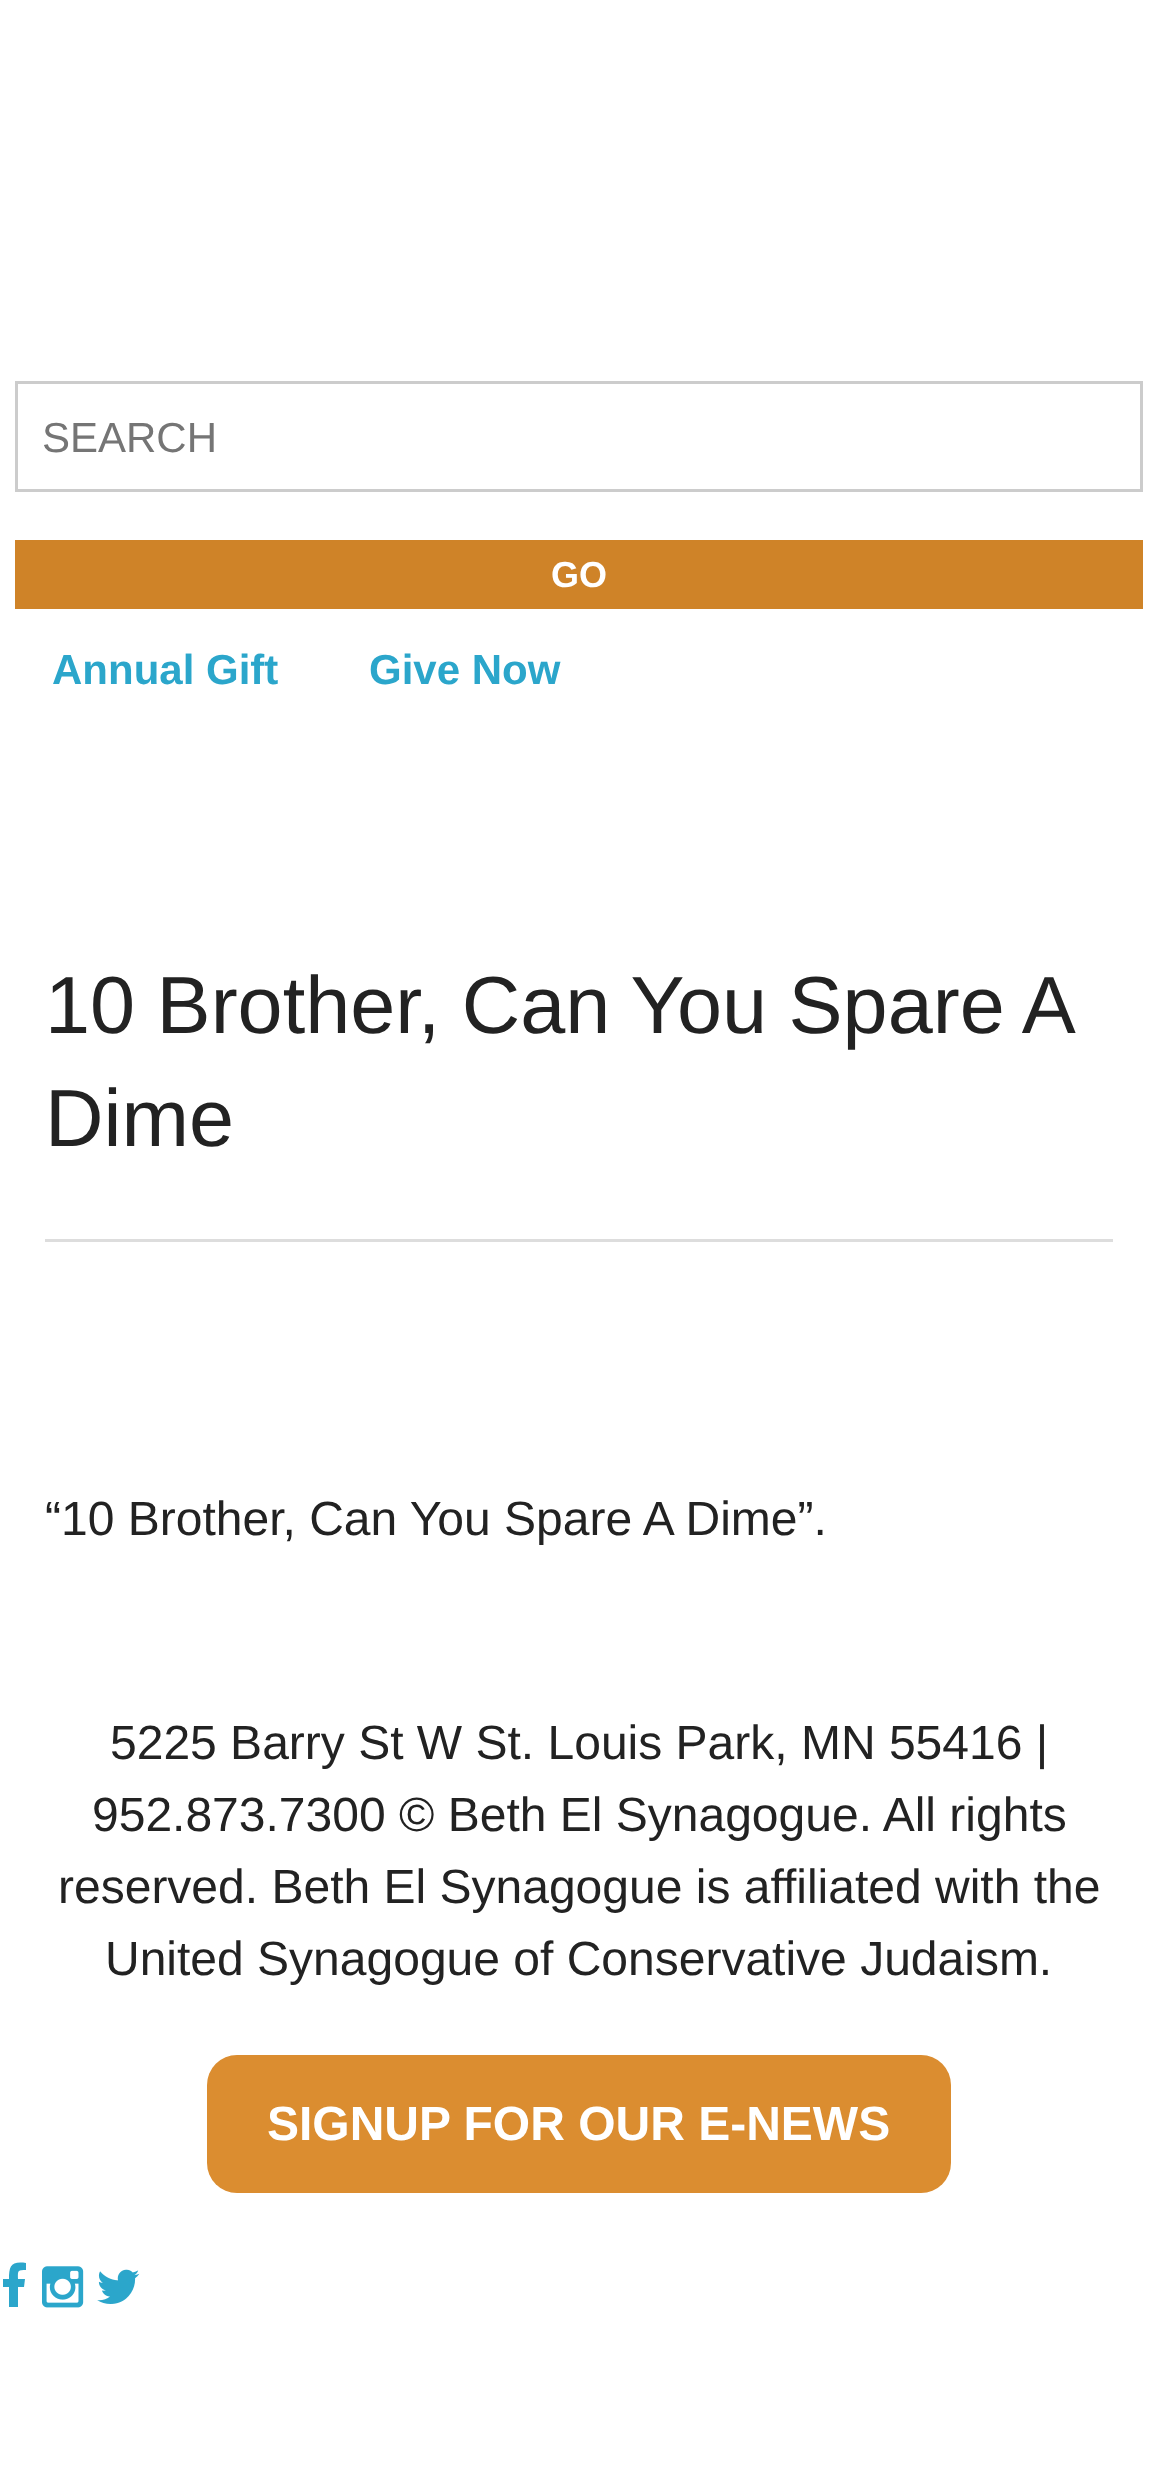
<!DOCTYPE html>
<meta charset="utf-8">
<style>body { margin: 0 } canvas { display: block }</style>
<canvas id="canvas" width="1158" height="2475"></canvas>
<script type="module">
  const canvas = document.getElementById("canvas");
  const g = canvas.getContext("2d");
  g.miterLimit = 4;
  g.fontKerning = "normal";
  function drawText(s, x, y, [font, color]) {
    g.font = font;
    g.fillStyle = color;
    g.fillText(s, x, y);
  }
  function fillBox(x, y, w, h, color) {
    g.fillStyle = color;
    g.fillRect(x, y, w, h);
  }
  function fillRounded(x, y, w, h, r, color) {
    g.fillStyle = color;
    g.beginPath();
    g.roundRect(x, y, w, h, r);
    g.fill();
  }
  async function drawPicture(src, x, y, w, h) {
    const img = new Image();
    img.src = src;
    await img.decode();
    g.drawImage(img, x, y, w, h);
  }

  const s1 = ["42px Liberation Sans", "#757575"];
  const s2 = ["bold 36px Liberation Sans", "#FFFFFF"];
  const s3 = ["bold 42px Liberation Sans", "#2BA6CB"];
  const s4 = ["81px Liberation Sans", "#222222"];
  const s5 = ["48px Liberation Sans", "#222222"];
  const s6 = ["bold 48px Liberation Sans", "#FFFFFF"];

  fillBox(0, 0, 1158, 2475, "#FFFFFF");
  g.strokeStyle = "#CCCCCC";
  g.lineWidth = 3;
  g.strokeRect(16.5, 382.5, 1125, 108);
  drawText("SEARCH", 42, 452, s1);
  fillBox(15, 540, 1128, 69, "#CF8328");
  drawText("GO", 551, 587, s2);
  drawText("Annual Gift", 52, 684, s3);
  drawText("Give Now", 369, 684, s3);
  g.wordSpacing = "-1px";
  drawText("10 Brother, Can You Spare A", 45, 1033, s4);
  g.wordSpacing = "0px";
  drawText("Dime", 45, 1146, s4);
  fillBox(45, 1239, 1068, 3, "#DDDDDD");
  drawText("“10 Brother, Can You Spare A Dime”.", 45, 1535, s5);
  drawText("5225 Barry St W St. Louis Park, MN 55416 |", 110, 1759, s5);
  drawText("952.873.7300 © Beth El Synagogue. All rights", 92, 1831, s5);
  drawText("reserved. Beth El Synagogue is affiliated with the", 58, 1903, s5);
  drawText("United Synagogue of Conservative Judaism.", 105, 1975, s5);
  fillRounded(207, 2055, 744, 138, 30, "#DB8D30");
  drawText("SIGNUP FOR OUR E-NEWS", 267, 2140, s6);
  g.fillStyle = "#2BA6CB";
  g.beginPath();
  g.moveTo(26, 2263);
  g.lineTo(26, 2270);
  g.bezierCurveTo(17, 2270, 18, 2271, 18, 2279);
  g.lineTo(25, 2279);
  g.lineTo(24, 2287);
  g.lineTo(18, 2287);
  g.lineTo(18, 2307);
  g.lineTo(9, 2307);
  g.lineTo(9, 2287);
  g.lineTo(3, 2287);
  g.lineTo(3, 2279);
  g.lineTo(9, 2279);
  g.bezierCurveTo(9, 2266, 11, 2261, 26, 2263);
  g.closePath();
  g.fill();
  await drawPicture("pic1.png", 42, 2266, 42, 42);
  await drawPicture("pic2.png", 97, 2269, 43, 35);
</script>
